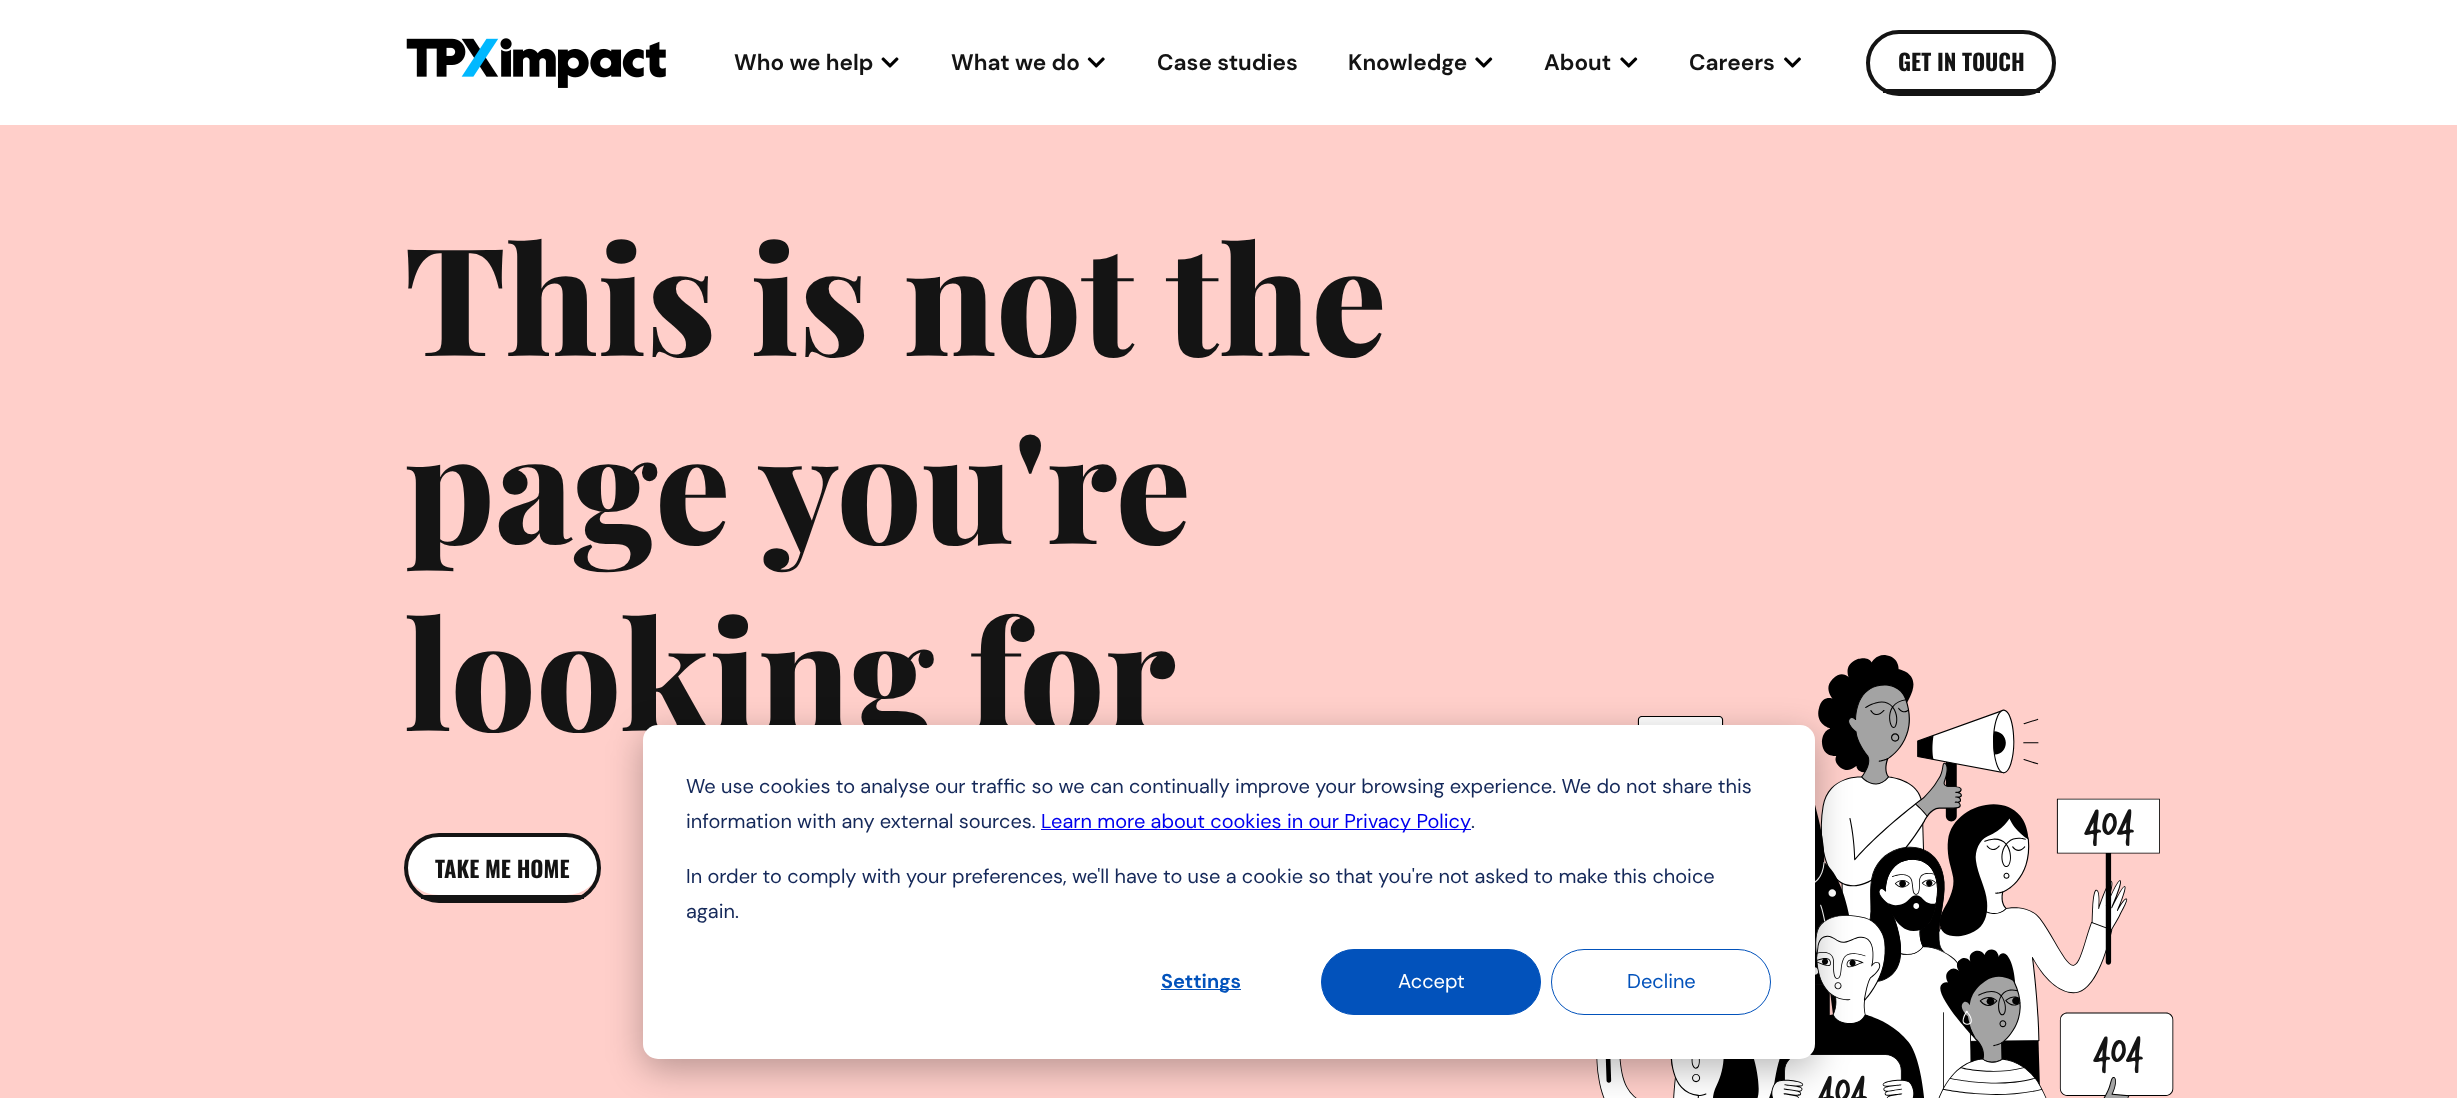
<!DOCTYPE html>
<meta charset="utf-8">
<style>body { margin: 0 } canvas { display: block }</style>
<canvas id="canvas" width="2457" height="1098"></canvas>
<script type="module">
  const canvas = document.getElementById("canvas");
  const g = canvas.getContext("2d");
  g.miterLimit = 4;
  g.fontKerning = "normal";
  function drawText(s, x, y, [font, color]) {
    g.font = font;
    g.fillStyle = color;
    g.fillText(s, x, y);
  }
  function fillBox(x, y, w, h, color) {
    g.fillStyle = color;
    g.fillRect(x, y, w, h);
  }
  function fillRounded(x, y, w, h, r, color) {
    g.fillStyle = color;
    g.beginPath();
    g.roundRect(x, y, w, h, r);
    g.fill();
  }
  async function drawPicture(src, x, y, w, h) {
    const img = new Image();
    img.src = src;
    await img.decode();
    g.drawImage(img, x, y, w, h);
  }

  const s1 = ["bold 22.5px DM Sans", "#141414"];
  const s2 = ["bold 22.5px Oswald", "#141414"];
  const s3 = ["800 150px Playfair Display", "#141414"];
  const s4 = ["20px DM Sans", "#15295A"];
  const s5 = ["20px DM Sans", "#0000EE"];
  const s6 = ["bold 20px DM Sans", "#0252BB"];
  const s7 = ["20px DM Sans", "#FFFFFF"];
  const s8 = ["20px DM Sans", "#0252BB"];

  fillBox(0, 0, 2457, 1098, "#FFFFFF");
  await drawPicture("pic1.png", 406, 38, 260, 50);
  drawText("Who we help", 734, 70, s1);
  await drawPicture("pic2.png", 881, 57, 18, 11);
  drawText("What we do", 951, 70, s1);
  await drawPicture("pic3.png", 1087, 57, 18, 11);
  drawText("Case studies", 1157, 70, s1);
  drawText("Knowledge", 1348, 70, s1);
  await drawPicture("pic4.png", 1475, 57, 18, 11);
  drawText("About", 1544, 70, s1);
  await drawPicture("pic4.png", 1620, 57, 18, 11);
  drawText("Careers", 1689, 70, s1);
  await drawPicture("pic5.png", 1784, 57, 17, 11);
  g.beginPath();
  g.roundRect(1868, 32, 186, 62, 31);
  g.strokeStyle = "#141414";
  g.lineWidth = 4;
  g.stroke();
  fillBox(1883, 89, 157, 4, "#141414");
  drawText("GET IN TOUCH", 1898, 71, s2);
  fillBox(0, 125, 2457, 973, "#FFCFCA");
  drawText("This is not the", 404, 356, s3);
  drawText("page you're", 404, 544, s3);
  drawText("looking for", 404, 731, s3);
  g.fillStyle = "#FFFFFF";
  g.beginPath();
  g.moveTo(439, 836);
  g.lineTo(566, 836);
  g.bezierCurveTo(584, 836, 598, 850, 598, 868);
  g.bezierCurveTo(598, 883, 584, 895, 566, 895);
  g.lineTo(439, 895);
  g.bezierCurveTo(421, 895, 408, 883, 408, 868);
  g.bezierCurveTo(408, 850, 421, 836, 439, 836);
  g.closePath();
  g.fill();
  g.beginPath();
  g.roundRect(406, 835, 193, 66, 33);
  g.stroke();
  fillBox(421, 895, 163, 4, "#141414");
  drawText("TAKE ME HOME", 435, 878, s2);
  await drawPicture("pic6.png", 1596, 655, 578, 443);
  g.fillStyle = "rgba(0, 0, 0, 0.28)";
  g.filter = "blur(17.5px)";
  g.beginPath();
  g.roundRect(643, 735, 1172, 334, 15);
  g.fill();
  g.filter = "none";
  fillRounded(643, 725, 1172, 334, 15, "#FFFFFF");
  drawText("We use cookies to analyse our traffic so we can continually improve your browsing experience. We do not share this", 686, 793, s4);
  drawText("information with any external sources.", 686, 828, s4);
  fillBox(1041, 829, 430, 1, "#0000EE");
  drawText("Learn more about cookies in our Privacy Policy", 1041, 828, s5);
  drawText(".", 1471, 828, s4);
  drawText("In order to comply with your preferences, we'll have to use a cookie so that you're not asked to make this choice", 686, 883, s4);
  drawText("again.", 686, 918, s4);
  fillBox(1161, 989, 80, 1, "#0252BB");
  drawText("Settings", 1161, 988, s6);
  g.beginPath();
  g.roundRect(1321.5, 949.5, 219, 65, 32.5);
  g.fill();
  g.strokeStyle = "#0252BB";
  g.lineWidth = 1;
  g.stroke();
  drawText("Accept", 1398, 988, s7);
  g.beginPath();
  g.roundRect(1551.5, 949.5, 219, 65, 32.5);
  g.stroke();
  drawText("Decline", 1627, 988, s8);
</script>
